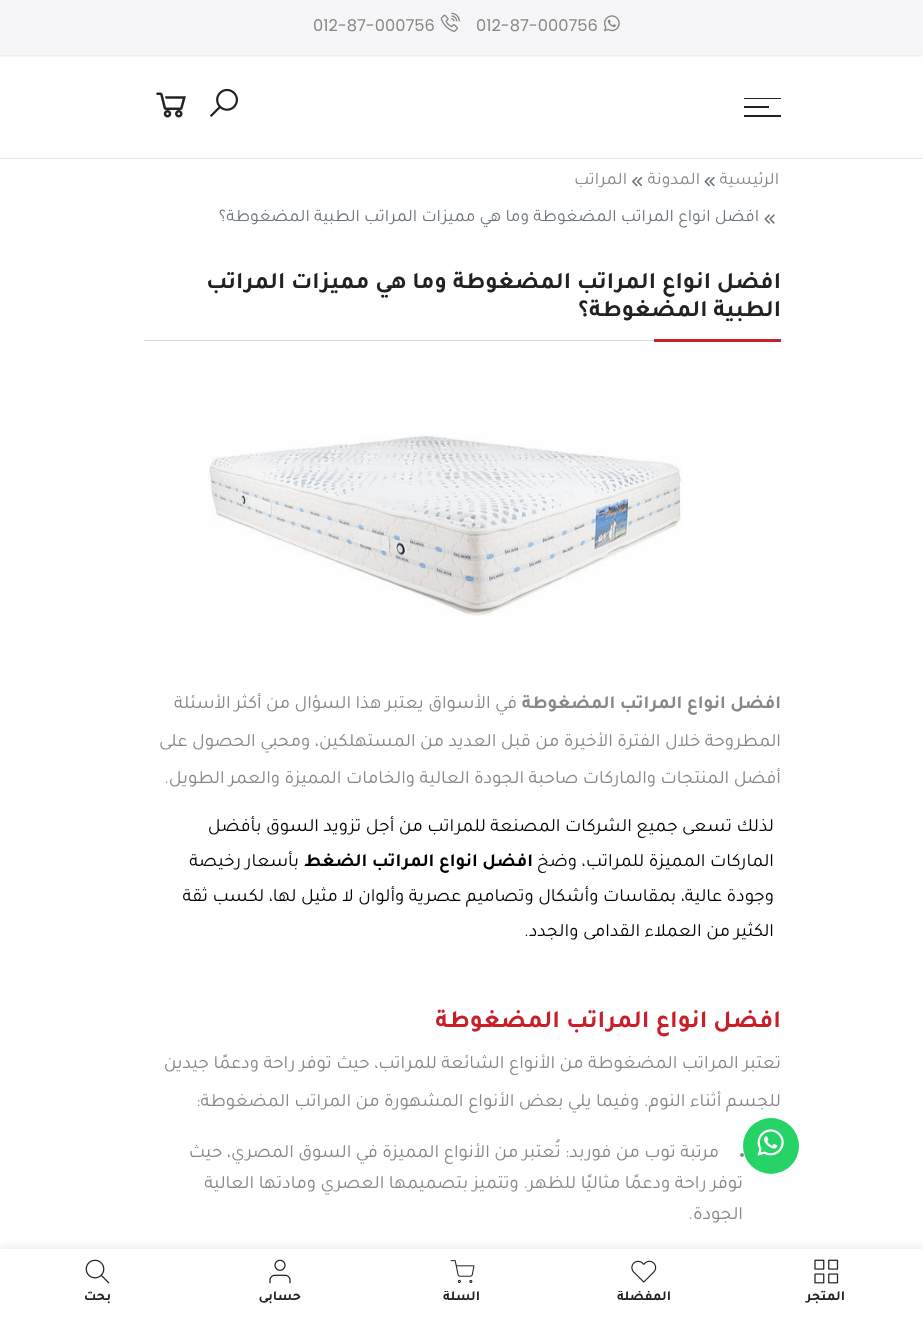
<!DOCTYPE html>
<meta charset="utf-8">
<style>body { margin: 0 } canvas { display: block }</style>
<canvas id="canvas" width="923" height="1317"></canvas>
<script type="module">
  const canvas = document.getElementById("canvas");
  const g = canvas.getContext("2d");
  g.miterLimit = 4;
  g.fontKerning = "normal";
  function drawText(s, x, y, [font, color]) {
    g.font = font;
    g.fillStyle = color;
    g.fillText(s, x, y);
  }
  function fillBox(x, y, w, h, color) {
    g.fillStyle = color;
    g.fillRect(x, y, w, h);
  }
  async function drawPicture(src, x, y, w, h) {
    const img = new Image();
    img.src = src;
    await img.decode();
    g.drawImage(img, x, y, w, h);
  }

  const s1 = ["16.25px Poppins", "#878787"];
  const s2 = ["17.5px Tajawal", "#878787"];
  const s3 = ["17.5px Tajawal", "#6C757D"];
  const s4 = ["bold 23.75px Tajawal", "#222222"];
  const s5 = ["bold 18.75px Tajawal", "#878787"];
  const s6 = ["18.75px Tajawal", "#878787"];
  const s7 = ["18.75px Tajawal", "#000000"];
  const s8 = ["bold 18.75px Tajawal", "#000000"];
  const s9 = ["bold 25px Tajawal", "#C91F28"];
  const s10 = ["bold 14px Tajawal", "#222222"];

  fillBox(0, 0, 923, 1317, "#FFFFFF");
  fillBox(0, 56, 923, 1, "#F7F7F7");
  fillBox(0, 0, 923, 55, "#F6F6F8");
  fillBox(0, 55, 923, 1, "#EFEFF1");
  await drawPicture("pic1.png", 604, 15, 16, 17);
  drawText("012-87-000756", 476, 31, s1);
  await drawPicture("pic2.png", 440, 12, 20, 20);
  drawText("012-87-000756", 313, 31, s1);
  fillBox(0, 158, 923, 1, "#E6E6E6");
  fillBox(744, 98, 37, 1, "#222222");
  fillBox(744, 106, 25, 2, "#222222");
  fillBox(744, 115, 37, 2, "#222222");
  await drawPicture("pic3.png", 209, 88, 29, 29);
  await drawPicture("pic4.png", 156, 92, 30, 26);
  g.direction = "rtl";
  drawText("الرئيسية", 779, 184, s2);
  await drawPicture("pic5.png", 704, 176, 11, 11);
  drawText("المدونة", 700, 184, s2);
  await drawPicture("pic6.png", 632, 176, 11, 11);
  drawText("المراتب", 627, 184, s2);
  await drawPicture("pic7.png", 764, 214, 11, 10);
  drawText("افضل انواع المراتب المضغوطة وما هي مميزات المراتب الطبية المضغوطة؟", 759, 221, s3);
  fillBox(144, 340, 510, 1, "#DADADA");
  drawText("افضل انواع المراتب المضغوطة وما هي مميزات المراتب", 781, 288, s4);
  drawText("الطبية المضغوطة؟", 781, 316, s4);
  fillBox(654, 339, 127, 3, "#C91F28");
  await drawPicture("pic8.png", 207, 433, 476, 183);
  drawText("افضل انواع المراتب المضغوطة", 781, 708, s5);
  drawText("في الأسواق يعتبر هذا السؤال من أكثر الأسئلة", 517, 708, s6);
  drawText("المطروحة خلال الفترة الأخيرة من قبل العديد من المستهلكين، ومحبي الحصول على", 781, 746, s6);
  drawText("أفضل المنتجات والماركات صاحبة الجودة العالية والخامات المميزة والعمر الطويل.", 781, 783, s6);
  drawText("لذلك تسعى جميع الشركات المصنعة للمراتب من أجل تزويد السوق بأفضل", 774, 831, s7);
  drawText("الماركات المميزة للمراتب، وضخ", 774, 866, s7);
  drawText("افضل انواع المراتب الضغط", 533, 866, s8);
  drawText("بأسعار رخيصة", 299, 866, s7);
  drawText("وجودة عالية، بمقاسات وأشكال وتصاميم عصرية وألوان لا مثيل لها، لكسب ثقة", 774, 901, s7);
  drawText("الكثير من العملاء القدامى والجدد.", 774, 936, s7);
  drawText("افضل انواع المراتب المضغوطة", 781, 1027, s9);
  drawText("تعتبر المراتب المضغوطة من الأنواع الشائعة للمراتب، حيث توفر راحة ودعمًا جيدين", 781, 1068, s6);
  drawText("للجسم أثناء النوم. وفيما يلي بعض الأنواع المشهورة من المراتب المضغوطة:", 781, 1106, s6);
  g.beginPath();
  g.arc(742, 1155, 2, 0, Math.PI * 2);
  g.fill();
  drawText("مرتبة توب من فوربد: تُعتبر من الأنواع المميزة في السوق المصري، حيث", 719, 1157, s6);
  drawText("توفر راحة ودعمًا مثاليًا للظهر. وتتميز بتصميمها العصري ومادتها العالية", 743, 1188, s6);
  drawText("الجودة.", 743, 1219, s6);
  g.fillStyle = "#25D366";
  g.beginPath();
  g.arc(771, 1146, 28, 0, Math.PI * 2);
  g.fill();
  await drawPicture("pic9.png", 757, 1129, 27, 27);
  g.fillStyle = "rgba(0, 0, 0, 0.12)";
  g.filter = "blur(5.5px)";
  g.beginPath();
  g.rect(0, 1249, 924, 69);
  g.fill();
  g.filter = "none";
  fillBox(0, 1249, 923, 68, "#FFFFFF");
  await drawPicture("pic10.png", 814, 1259, 25, 25);
  drawText("المتجر", 845, 1300, s10);
  await drawPicture("pic11.png", 631, 1260, 26, 23);
  g.save();
  g.beginPath();
  g.rect(565, 1291, 158, 14);
  g.clip();
  drawText("المفضلة", 671, 1300, s10);
  g.restore();
  await drawPicture("pic12.png", 450, 1260, 25, 23);
  g.save();
  g.beginPath();
  g.rect(384, 1291, 156, 14);
  g.clip();
  drawText("السلة", 480, 1300, s10);
  g.restore();
  await drawPicture("pic13.png", 269, 1259, 22, 25);
  drawText("حسابى", 301, 1300, s10);
  await drawPicture("pic14.png", 85, 1259, 25, 25);
  g.save();
  g.beginPath();
  g.rect(19, 1291, 157, 14);
  g.clip();
  drawText("بحث", 111, 1300, s10);
  g.restore();
</script>
